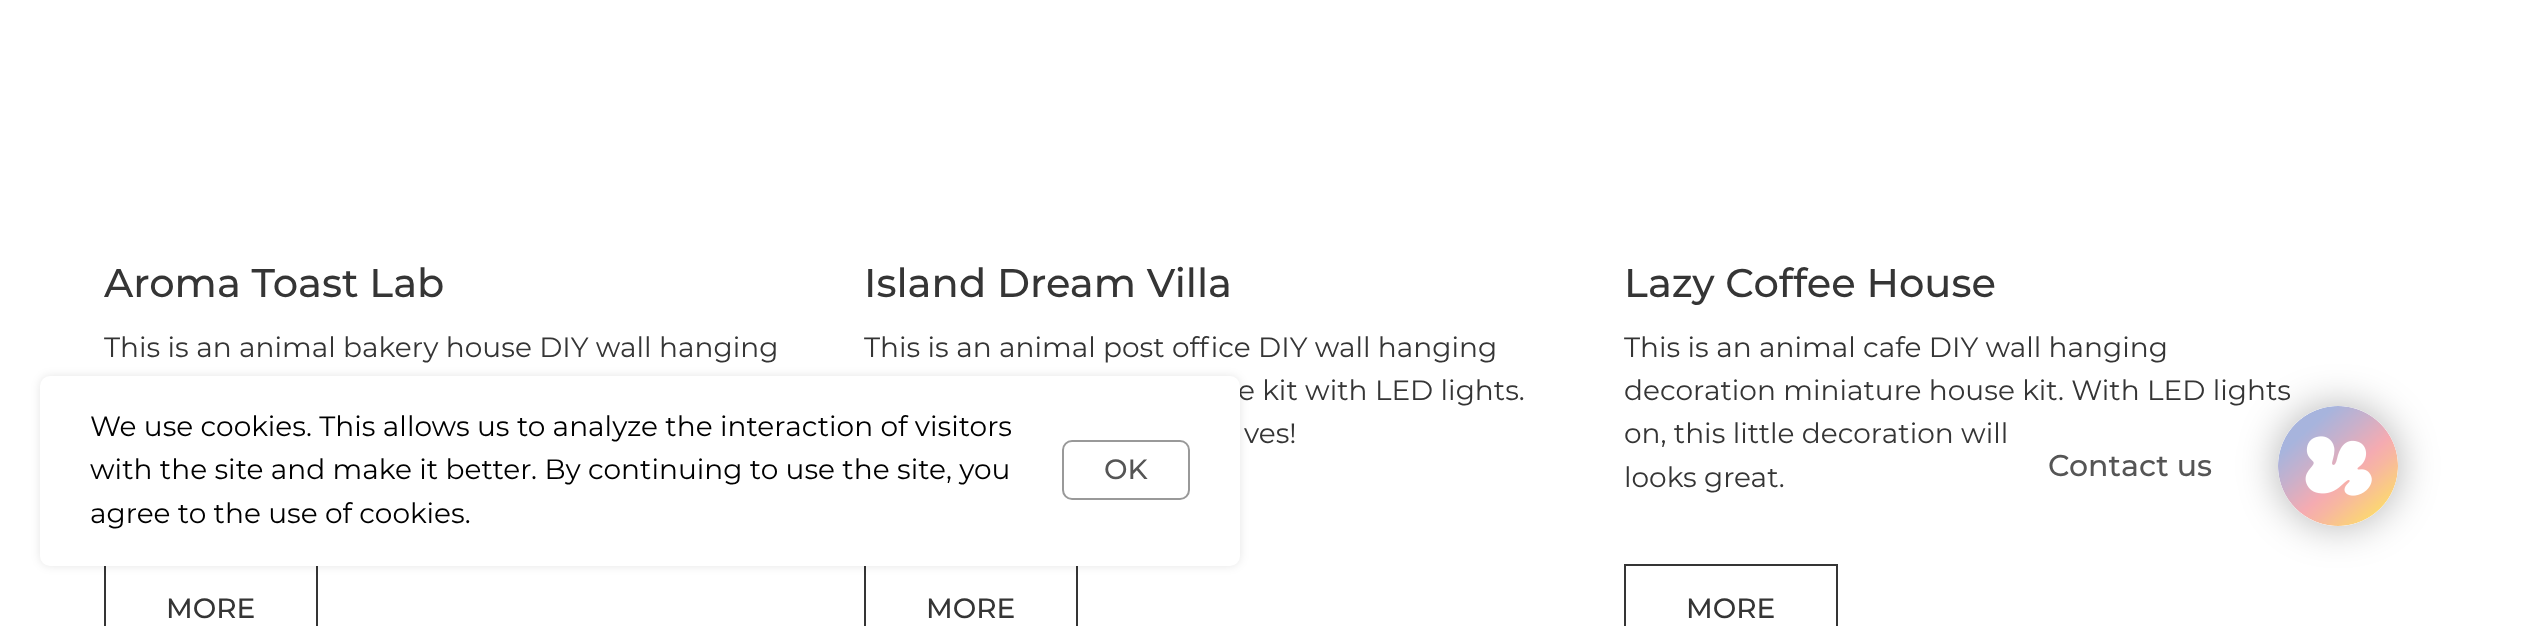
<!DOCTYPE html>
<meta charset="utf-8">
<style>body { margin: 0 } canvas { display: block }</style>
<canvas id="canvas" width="2528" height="626"></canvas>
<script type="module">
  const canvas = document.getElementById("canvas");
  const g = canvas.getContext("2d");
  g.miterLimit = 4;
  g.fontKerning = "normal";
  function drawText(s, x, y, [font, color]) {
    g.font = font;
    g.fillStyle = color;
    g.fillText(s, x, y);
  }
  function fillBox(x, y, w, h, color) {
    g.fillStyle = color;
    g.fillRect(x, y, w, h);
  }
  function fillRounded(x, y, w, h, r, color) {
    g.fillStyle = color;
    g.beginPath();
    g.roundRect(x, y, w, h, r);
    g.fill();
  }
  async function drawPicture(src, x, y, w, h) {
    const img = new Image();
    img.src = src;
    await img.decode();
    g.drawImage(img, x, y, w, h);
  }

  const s1 = ["500 40px Montserrat", "#353535"];
  const s2 = ["28px Montserrat", "#353535"];
  const s3 = ["500 28px Montserrat", "#353535"];
  const s4 = ["28px Montserrat", "#000000"];
  const s5 = ["500 28px Montserrat", "#555555"];
  const s6 = ["500 30px Montserrat", "#555555"];

  fillBox(0, 0, 2528, 626, "#FFFFFF");
  drawText("Aroma Toast Lab", 104, 297, s1);
  drawText("This is an animal bakery house DIY wall hanging", 104, 357, s2);
  g.strokeStyle = "#353535";
  g.lineWidth = 2;
  g.strokeRect(105, 565, 212, 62);
  drawText("MORE", 166, 618, s3);
  drawText("Island Dream Villa", 864, 297, s1);
  drawText("This is an animal post office DIY wall hanging", 864, 357, s2);
  drawText("e kit with LED lights.", 1238, 400, s2);
  drawText("ves!", 1244, 443, s2);
  g.strokeRect(865, 565, 212, 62);
  drawText("MORE", 926, 618, s3);
  drawText("Lazy Coffee House", 1624, 297, s1);
  drawText("This is an animal cafe DIY wall hanging", 1624, 357, s2);
  drawText("decoration miniature house kit. With LED lights", 1624, 400, s2);
  drawText("on, this little decoration will", 1624, 443, s2);
  drawText("looks great.", 1624, 487, s2);
  g.strokeRect(1625, 565, 212, 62);
  drawText("MORE", 1686, 618, s3);
  g.fillStyle = "rgba(0, 0, 0, 0.1)";
  g.filter = "blur(5px)";
  g.beginPath();
  g.roundRect(40, 376, 1200, 190, 10);
  g.fill();
  g.filter = "none";
  fillRounded(40, 376, 1200, 190, 10, "#FFFFFF");
  drawText("We use cookies. This allows us to analyze the interaction of visitors", 90, 436, s4);
  drawText("with the site and make it better. By continuing to use the site, you", 90, 479, s4);
  drawText("agree to the use of cookies.", 90, 523, s4);
  g.beginPath();
  g.roundRect(1063, 441, 126, 58, 9);
  g.strokeStyle = "#999999";
  g.stroke();
  drawText("OK", 1104, 479, s5);
  drawText("Contact us", 2048, 476, s6);
  g.fillStyle = "rgba(0, 0, 0, 0.3)";
  g.filter = "blur(20px)";
  g.beginPath();
  g.roundRect(2278, 406, 120, 120, 60);
  g.fill();
  g.filter = "none";
  g.fillStyle = "#FFFFFF";
  g.beginPath();
  g.arc(2338, 466, 60, 0, Math.PI * 2);
  g.fill();
  await drawPicture("pic1.png", 2278, 406, 120, 120);
</script>
